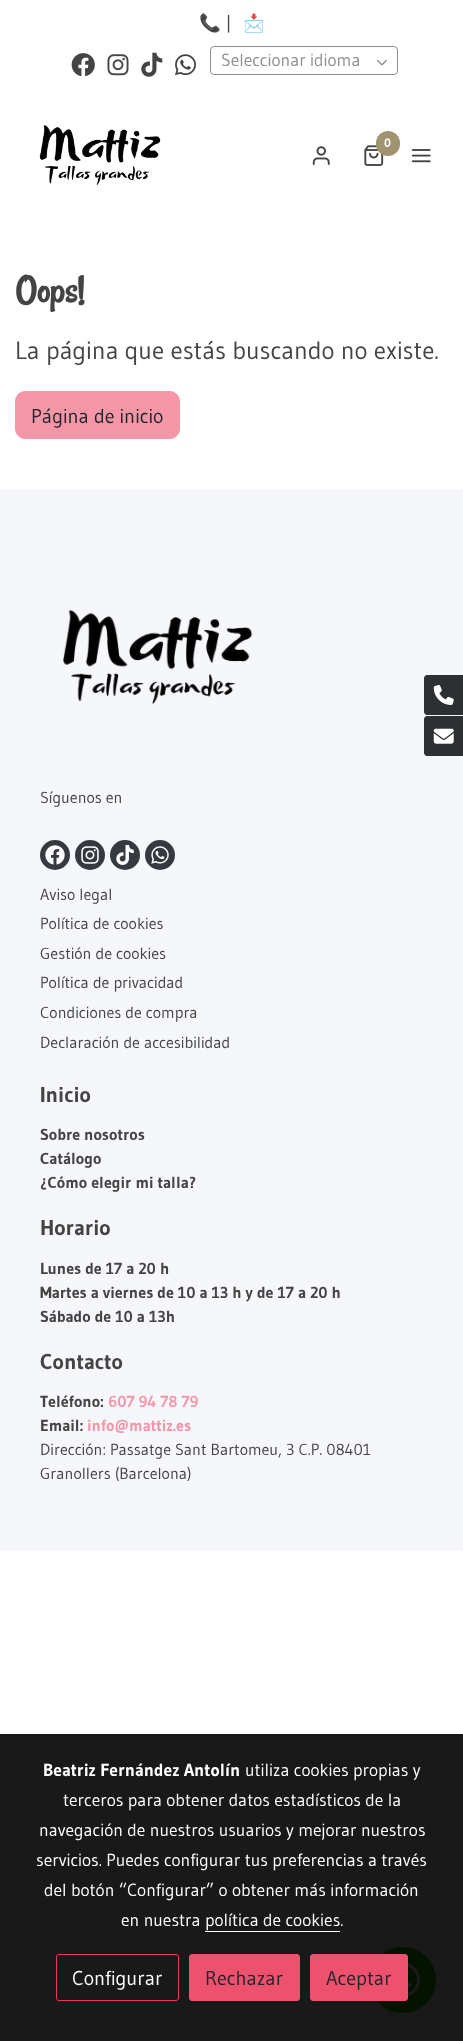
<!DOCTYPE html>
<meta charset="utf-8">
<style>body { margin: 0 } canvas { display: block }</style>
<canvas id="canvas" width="463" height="2041"></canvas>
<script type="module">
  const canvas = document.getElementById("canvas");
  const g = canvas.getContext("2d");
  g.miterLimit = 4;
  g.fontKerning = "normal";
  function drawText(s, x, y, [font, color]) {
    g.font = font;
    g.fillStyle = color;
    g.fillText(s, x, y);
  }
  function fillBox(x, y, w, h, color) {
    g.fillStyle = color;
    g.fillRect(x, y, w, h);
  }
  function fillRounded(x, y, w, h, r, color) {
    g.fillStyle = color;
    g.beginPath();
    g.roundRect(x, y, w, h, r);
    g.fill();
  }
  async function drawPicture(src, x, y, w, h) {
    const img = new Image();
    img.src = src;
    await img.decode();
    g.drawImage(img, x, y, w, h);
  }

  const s1 = ["17.5px Noto Color Emoji", "#444444"];
  const s2 = ["17.5px Gudea", "#444444"];
  const s3 = ["17.5px Gudea", "#8F8F8F"];
  const s4 = ["bold 12px Gudea", "#FFFFFF"];
  const s5 = ["bold 40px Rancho", "#444444"];
  const s6 = ["25px Gudea", "#444444"];
  const s7 = ["20px Gudea", "#212529"];
  const s8 = ["16px Gudea", "#444444"];
  const s9 = ["bold 21.5px Gudea", "#444444"];
  const s10 = ["bold 16px Gudea", "#444444"];
  const s11 = ["bold 16px Gudea", "#F496A7"];
  const s12 = ["bold 17.5px Gudea", "#FFFFFF"];
  const s13 = ["17.5px Gudea", "#FFFFFF"];
  const s14 = ["20px Gudea", "#FFFFFF"];

  fillBox(0, 0, 463, 2041, "#FFFFFF");
  fillBox(0, 1734, 463, 307, "#191919");
  drawText("📞", 199, 29, s1);
  drawText("|", 226, 29, s2);
  drawText("📩", 243, 29, s1);
  await drawPicture("pic1.png", 71, 53, 24, 24);
  await drawPicture("pic2.png", 107, 54, 22, 22);
  await drawPicture("pic3.png", 141, 52, 22, 25);
  await drawPicture("pic4.png", 175, 54, 21, 22);
  g.beginPath();
  g.roundRect(210.5, 46.5, 187, 28, 3.5);
  g.strokeStyle = "#8F8F8F";
  g.stroke();
  drawText("Seleccionar idioma", 221, 66, s3);
  await drawPicture("pic5.png", 377, 59, 10, 7);
  await drawPicture("pic6.png", 39, 125, 122, 60);
  await drawPicture("pic7.png", 364, 145, 20, 21);
  fillRounded(376, 131, 24, 25, 12, "#A09370");
  drawText("0", 384, 147, s4);
  await drawPicture("pic8.png", 312, 146, 18, 19);
  await drawPicture("pic9.png", 411, 149, 20, 14);
  drawText("Oops!", 15, 302, s5);
  drawText("La página que estás buscando no existe.", 15, 359, s6);
  g.fillStyle = "#F496A7";
  g.beginPath();
  g.roundRect(15.5, 391.5, 164, 47, 9.5);
  g.fill();
  g.strokeStyle = "#F496A7";
  g.stroke();
  drawText("Página de inicio", 31, 423, s7);
  fillBox(0, 489, 463, 1062, "#F5F7FA");
  await drawPicture("pic10.png", 63, 609, 190, 95);
  drawText("Síguenos en", 40, 803, s8);
  g.fillStyle = "#343A40";
  g.beginPath();
  g.arc(55, 855, 15, 0, Math.PI * 2);
  g.fill();
  await drawPicture("pic11.png", 45, 845, 20, 20);
  g.beginPath();
  g.arc(90, 855, 15, 0, Math.PI * 2);
  g.fill();
  await drawPicture("pic12.png", 81, 846, 18, 18);
  g.beginPath();
  g.arc(125, 855, 15, 0, Math.PI * 2);
  g.fill();
  await drawPicture("pic13.png", 116, 845, 18, 20);
  g.beginPath();
  g.arc(160, 855, 15, 0, Math.PI * 2);
  g.fill();
  await drawPicture("pic14.png", 151, 846, 18, 18);
  drawText("Aviso legal", 40, 900, s8);
  drawText("Política de cookies", 40, 929, s8);
  drawText("Gestión de cookies", 40, 959, s8);
  drawText("Política de privacidad", 40, 988, s8);
  drawText("Condiciones de compra", 40, 1018, s8);
  drawText("Declaración de accesibilidad", 40, 1048, s8);
  drawText("Inicio", 40, 1102, s9);
  drawText("Sobre nosotros", 40, 1140, s10);
  drawText("Catálogo", 40, 1164, s10);
  drawText("¿Cómo elegir mi talla?", 40, 1188, s10);
  drawText("Horario", 40, 1235, s9);
  drawText("Lunes de 17 a 20 h", 40, 1274, s10);
  drawText("Martes a viernes de 10 a 13 h y de 17 a 20 h", 40, 1298, s10);
  drawText("Sábado de 10 a 13h", 40, 1322, s10);
  drawText("Contacto", 40, 1369, s9);
  drawText("Teléfono:", 40, 1407, s10);
  drawText("607 94 78 79", 108, 1407, s11);
  drawText("Email:", 40, 1431, s10);
  drawText("info@mattiz.es", 87, 1431, s11);
  drawText("Dirección: Passatge Sant Bartomeu, 3 C.P. 08401", 40, 1455, s8);
  drawText("Granollers (Barcelona)", 40, 1479, s8);
  g.fillStyle = "#2C3033";
  g.beginPath();
  g.moveTo(427, 675);
  g.lineTo(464, 675);
  g.lineTo(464, 715);
  g.lineTo(427, 715);
  g.bezierCurveTo(425.5, 715, 424, 713.5, 424, 712);
  g.lineTo(424, 678);
  g.bezierCurveTo(424, 676.5, 425.5, 675, 427, 675);
  g.closePath();
  g.fill();
  await drawPicture("pic15.png", 433, 685, 21, 20);
  g.beginPath();
  g.moveTo(427, 716);
  g.lineTo(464, 716);
  g.lineTo(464, 756);
  g.lineTo(427, 756);
  g.bezierCurveTo(425.5, 756, 424, 754.5, 424, 753);
  g.lineTo(424, 719);
  g.bezierCurveTo(424, 717.5, 425.5, 716, 427, 716);
  g.closePath();
  g.fill();
  await drawPicture("pic16.png", 433, 728, 21, 16);
  drawText("Beatriz Fernández Antolín", 43, 1776, s12);
  drawText("utiliza cookies propias y", 245, 1776, s13);
  drawText("terceros para obtener datos estadísticos de la", 63, 1806, s13);
  drawText("navegación de nuestros usuarios y mejorar nuestros", 39, 1836, s13);
  drawText("servicios. Puedes configurar tus preferencias a través", 36, 1866, s13);
  drawText("del botón “Configurar” o obtener más información", 44, 1896, s13);
  drawText("en nuestra política de cookies.", 121, 1926, s13);
  fillBox(205, 1931, 135, 1, "#FFFFFF");
  g.beginPath();
  g.roundRect(56.5, 1954.5, 122, 46, 2.5);
  g.strokeStyle = "#EA3A5A";
  g.stroke();
  drawText("Configurar", 72, 1985, s14);
  g.fillStyle = "#ED516D";
  g.beginPath();
  g.roundRect(189.5, 1954.5, 110, 46, 2.5);
  g.fill();
  g.strokeStyle = "#ED516D";
  g.stroke();
  drawText("Rechazar", 205, 1985, s7);
  g.fillStyle = "#041200";
  g.beginPath();
  g.roundRect(367.5, 1945.5, 70, 69, 34.5);
  g.fill();
  g.strokeStyle = "#191919";
  g.lineWidth = 3;
  g.stroke();
  g.fillStyle = "#ED516D";
  g.beginPath();
  g.roundRect(310.5, 1954.5, 97, 46, 2.5);
  g.fill();
  g.strokeStyle = "#ED516D";
  g.lineWidth = 1;
  g.stroke();
  drawText("Aceptar", 326, 1985, s7);
  await drawPicture("pic17.png", 408, 1963, 12, 34);
</script>
